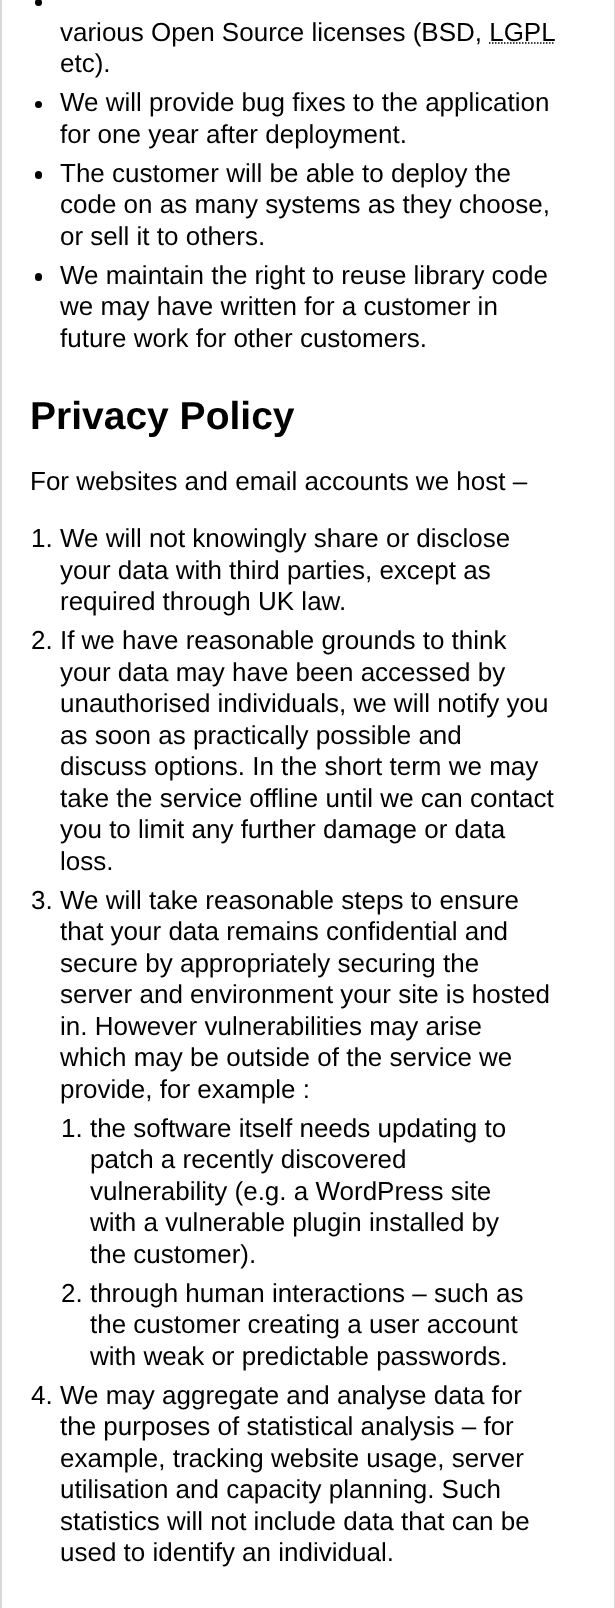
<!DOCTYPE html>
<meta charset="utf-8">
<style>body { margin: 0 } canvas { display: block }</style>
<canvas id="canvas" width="615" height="1608"></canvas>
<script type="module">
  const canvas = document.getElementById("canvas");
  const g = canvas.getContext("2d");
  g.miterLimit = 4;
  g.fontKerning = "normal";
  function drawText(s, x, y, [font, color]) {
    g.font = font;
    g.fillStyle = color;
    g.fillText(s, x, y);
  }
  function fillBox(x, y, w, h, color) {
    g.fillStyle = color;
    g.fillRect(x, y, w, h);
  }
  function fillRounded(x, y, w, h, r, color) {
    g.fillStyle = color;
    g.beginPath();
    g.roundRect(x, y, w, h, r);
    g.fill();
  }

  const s1 = ["26px Liberation Sans", "#000000"];
  const s2 = ["bold 39px Liberation Sans", "#000000"];

  fillBox(0, 0, 615, 1608, "#FFFFFF");
  g.strokeStyle = "#D8D8D8";
  g.lineWidth = 2;
  g.strokeRect(1, -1, 613, 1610);
  fillBox(613, 0, 1, 1608, "#FFFFFF");
  g.fillStyle = "#000000";
  g.beginPath();
  g.arc(38.5, 2.5, 3.5, 0, Math.PI * 2);
  g.fill();
  drawText("various Open Source licenses (BSD, LGPL", 60, 41, s1);
  g.beginPath();
  g.moveTo(489, 43);
  g.lineTo(554.5, 43);
  g.strokeStyle = "#000000";
  g.lineWidth = 1.5;
  g.setLineDash([1.5, 1.5]);
  g.stroke();
  drawText("etc).", 60, 72, s1);
  g.beginPath();
  g.arc(38.5, 104.5, 3.5, 0, Math.PI * 2);
  g.fill();
  drawText("We will provide bug fixes to the application", 60, 111, s1);
  drawText("for one year after deployment.", 60, 143, s1);
  fillRounded(35, 171, 7, 8, 3.5, "#000000");
  drawText("The customer will be able to deploy the", 60, 182, s1);
  drawText("code on as many systems as they choose,", 60, 213, s1);
  drawText("or sell it to others.", 60, 245, s1);
  fillRounded(35, 273, 7, 8, 3.5, "#000000");
  drawText("We maintain the right to reuse library code", 60, 284, s1);
  drawText("we may have written for a customer in", 60, 315, s1);
  drawText("future work for other customers.", 60, 347, s1);
  drawText("Privacy Policy", 30, 429, s2);
  drawText("For websites and email accounts we host –", 30, 490, s1);
  drawText("1. We will not knowingly share or disclose", 31, 547, s1);
  drawText("your data with third parties, except as", 60, 579, s1);
  drawText("required through UK law.", 60, 610, s1);
  drawText("2. If we have reasonable grounds to think", 31, 649, s1);
  drawText("your data may have been accessed by", 60, 681, s1);
  drawText("unauthorised individuals, we will notify you", 60, 712, s1);
  drawText("as soon as practically possible and", 60, 744, s1);
  drawText("discuss options. In the short term we may", 60, 775, s1);
  drawText("take the service offline until we can contact", 60, 807, s1);
  drawText("you to limit any further damage or data", 60, 838, s1);
  drawText("loss.", 60, 870, s1);
  drawText("3. We will take reasonable steps to ensure", 31, 909, s1);
  drawText("that your data remains confidential and", 60, 940, s1);
  drawText("secure by appropriately securing the", 60, 972, s1);
  drawText("server and environment your site is hosted", 60, 1003, s1);
  drawText("in. However vulnerabilities may arise", 60, 1035, s1);
  drawText("which may be outside of the service we", 60, 1066, s1);
  drawText("provide, for example :", 60, 1098, s1);
  drawText("1. the software itself needs updating to", 61, 1137, s1);
  drawText("patch a recently discovered", 90, 1168, s1);
  drawText("vulnerability (e.g. a WordPress site", 90, 1200, s1);
  drawText("with a vulnerable plugin installed by", 90, 1231, s1);
  drawText("the customer).", 90, 1263, s1);
  drawText("2. through human interactions – such as", 61, 1302, s1);
  drawText("the customer creating a user account", 90, 1333, s1);
  drawText("with weak or predictable passwords.", 90, 1365, s1);
  drawText("4. We may aggregate and analyse data for", 31, 1404, s1);
  drawText("the purposes of statistical analysis – for", 60, 1435, s1);
  drawText("example, tracking website usage, server", 60, 1467, s1);
  drawText("utilisation and capacity planning. Such", 60, 1498, s1);
  drawText("statistics will not include data that can be", 60, 1530, s1);
  drawText("used to identify an individual.", 60, 1561, s1);
</script>
